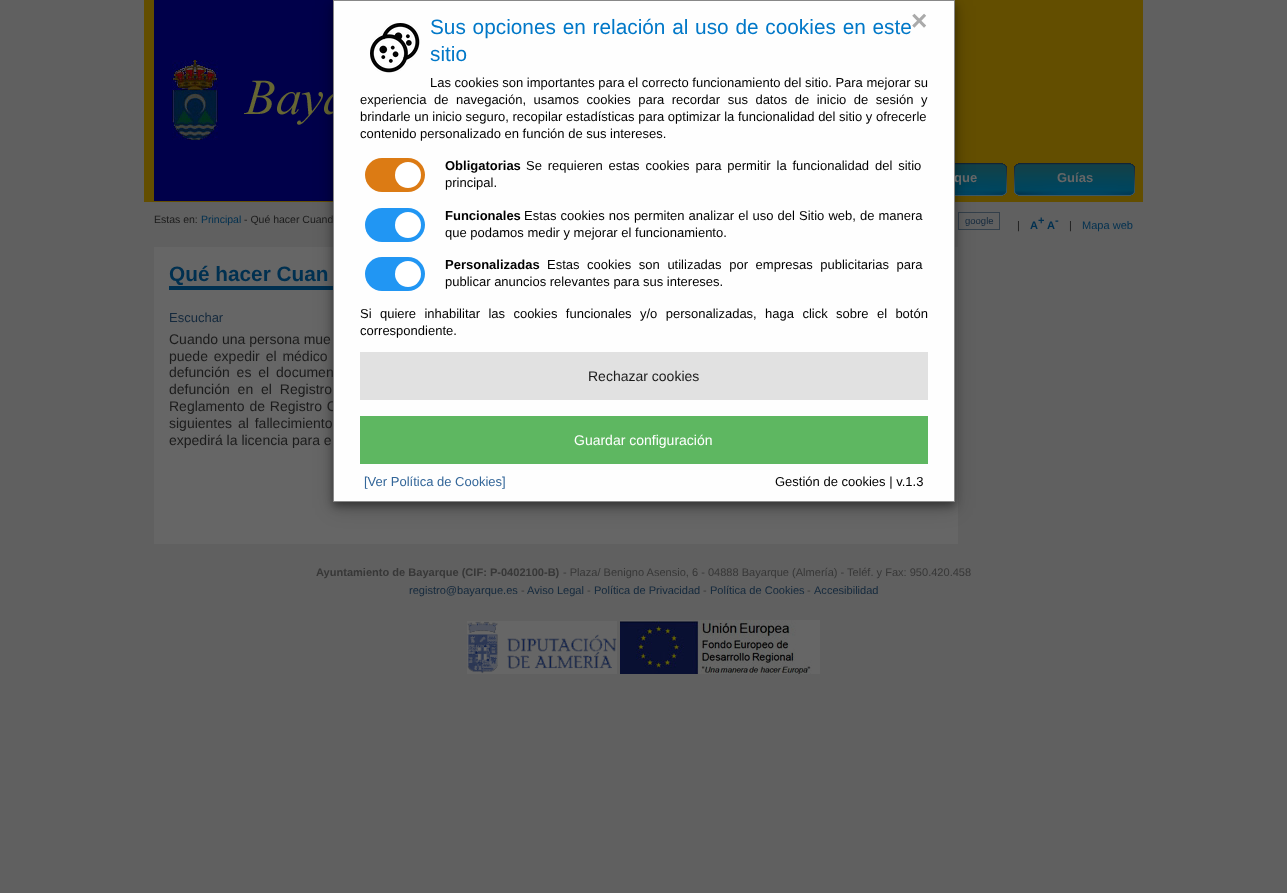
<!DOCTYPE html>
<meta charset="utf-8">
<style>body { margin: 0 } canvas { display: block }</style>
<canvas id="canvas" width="1287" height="893"></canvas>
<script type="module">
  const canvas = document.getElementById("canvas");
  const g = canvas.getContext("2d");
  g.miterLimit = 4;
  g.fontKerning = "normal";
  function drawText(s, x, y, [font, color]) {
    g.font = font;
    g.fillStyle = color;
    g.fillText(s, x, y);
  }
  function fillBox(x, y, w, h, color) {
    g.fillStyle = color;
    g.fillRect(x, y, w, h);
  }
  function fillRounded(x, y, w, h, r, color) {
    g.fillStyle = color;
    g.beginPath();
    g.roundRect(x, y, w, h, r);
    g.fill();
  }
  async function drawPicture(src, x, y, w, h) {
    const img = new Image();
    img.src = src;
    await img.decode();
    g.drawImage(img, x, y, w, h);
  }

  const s1 = ["bold 13px Liberation Sans", "#666666"];
  const s2 = ["14px Liberation Sans", "#1B1B1B"];
  const s3 = ["20.8px Liberation Sans", "#0178C8"];
  const s4 = ["bold 28px Liberation Sans", "#AAAAAA"];
  const s5 = ["13px Liberation Sans", "#000000"];
  const s6 = ["bold 13px Liberation Sans", "#000000"];
  const s7 = ["14px Liberation Sans", "#FFFFFF"];
  const s8 = ["13px Liberation Sans", "#336699"];
  const s9 = ["10.5px Liberation Sans", "#1B1B1B"];
  const s10 = ["10.5px Liberation Sans", "#003050"];
  const s11 = ["9.5px Liberation Sans", "#14293D"];
  const s12 = ["11.05px Liberation Sans", "#1B1B1B"];
  const s13 = ["bold 11.05px Liberation Sans", "#003050"];
  const s14 = ["11.05px Liberation Sans", "#003050"];
  const s15 = ["bold 20.8px Liberation Sans", "#003050"];
  const s16 = ["13px Liberation Sans", "#14293D"];
  const s17 = ["bold 11.05px Liberation Sans", "#373737"];
  const s18 = ["11.05px Liberation Sans", "#373737"];
  const s19 = ["11.05px Liberation Sans", "#14293D"];

  fillBox(0, 0, 1287, 893, "#606060");
  fillBox(144, 0, 999, 202, "#634E00");
  await drawPicture("pic2.png", 154, 0, 179, 201);
  await drawPicture("pic3.png", 955, 163, 52, 33);
  g.strokeStyle = "#333F4A";
  g.strokeRect(958.5, 212.5, 41, 17);
  fillBox(154, 247, 804, 297, "#666666");
  fillBox(169, 286, 164, 4, "#003050");
  g.fillStyle = "rgba(0, 0, 0, 0.19)";
  g.filter = "blur(10px)";
  g.beginPath();
  g.rect(333, 6, 622, 502);
  g.fill();
  g.filter = "none";
  g.fillStyle = "rgba(0, 0, 0, 0.4)";
  g.filter = "blur(4px)";
  g.beginPath();
  g.rect(333, 4, 622, 502);
  g.fill();
  g.filter = "none";
  drawText("que", 954, 182, s1);
  g.wordSpacing = "3px";
  drawText("defunción es el documen", 169, 377, s2);
  g.wordSpacing = "1px";
  drawText("Reglamento de Registro C", 169, 411, s2);
  g.fillStyle = "#FEFEFE";
  g.beginPath();
  g.rect(333.5, 0.5, 621, 501);
  g.fill();
  g.strokeStyle = "#888888";
  g.stroke();
  await drawPicture("pic1.png", 370, 23, 50, 50);
  drawText("Sus opciones en relación al uso de cookies en este", 430, 34, s3);
  g.wordSpacing = "0px";
  drawText("sitio", 430, 61, s3);
  drawText("×", 911, 30, s4);
  drawText("Las cookies son importantes para el correcto funcionamiento del sitio. Para mejorar su", 430, 87, s5);
  g.wordSpacing = "3.9px";
  drawText("experiencia de navegación, usamos cookies para recordar sus datos de inicio de sesión y", 360, 104, s5);
  g.wordSpacing = "0px";
  drawText("brindarle un inicio seguro, recopilar estadísticas para optimizar la funcionalidad del sitio y ofrecerle", 360, 121, s5);
  drawText("contenido personalizado en función de sus intereses.", 360, 138, s5);
  fillRounded(365, 158, 60, 34, 17, "#DC7B14");
  g.fillStyle = "#FFFFFF";
  g.beginPath();
  g.arc(408, 175, 13, 0, Math.PI * 2);
  g.fill();
  drawText("Obligatorias", 445, 170, s6);
  g.wordSpacing = "2.25px";
  drawText("Se requieren estas cookies para permitir la funcionalidad del sitio", 526, 170, s5);
  g.wordSpacing = "0px";
  drawText("principal.", 445, 187, s5);
  fillRounded(365, 208, 60, 34, 17, "#2196F3");
  g.fillStyle = "#FFFFFF";
  g.beginPath();
  g.arc(408, 225, 13, 0, Math.PI * 2);
  g.fill();
  drawText("Funcionales", 445, 220, s6);
  g.wordSpacing = "0.5px";
  drawText("Estas cookies nos permiten analizar el uso del Sitio web, de manera", 524, 220, s5);
  g.wordSpacing = "0px";
  drawText("que podamos medir y mejorar el funcionamiento.", 445, 237, s5);
  fillRounded(365, 257, 60, 34, 17, "#2196F3");
  g.fillStyle = "#FFFFFF";
  g.beginPath();
  g.arc(408, 274, 13, 0, Math.PI * 2);
  g.fill();
  drawText("Personalizadas", 445, 269, s6);
  g.wordSpacing = "4px";
  drawText("Estas cookies son utilizadas por empresas publicitarias para", 547, 269, s5);
  g.wordSpacing = "0px";
  drawText("publicar anuncios relevantes para sus intereses.", 445, 286, s5);
  g.wordSpacing = "4.75px";
  drawText("Si quiere inhabilitar las cookies funcionales y/o personalizadas, haga click sobre el botón", 360, 318, s5);
  g.wordSpacing = "0px";
  drawText("correspondiente.", 360, 335, s5);
  fillBox(360, 352, 568, 48, "#E1E1E1");
  drawText("Rechazar cookies", 588, 381, s2);
  fillBox(360, 416, 568, 48, "#5EB761");
  drawText("Guardar configuración", 574, 445, s7);
  drawText("[Ver Política de Cookies]", 364, 486, s8);
  drawText("Gestión de cookies | v.1.3", 775, 486, s5);
  await drawPicture("pic4.png", 1014, 163, 121, 33);
  drawText("Guías", 1057, 182, s1);
  drawText("Estas en:", 154, 223, s9);
  drawText("Principal", 201, 223, s10);
  drawText("- Qué hacer Cuand", 244, 223, s9);
  drawText("google", 965, 224, s11);
  drawText("|", 1017, 229, s12);
  drawText("A", 1030, 229, s13);
  drawText("+", 1038, 224, s13);
  drawText("A", 1047, 229, s13);
  drawText("-", 1055, 224, s13);
  drawText("|", 1069, 229, s12);
  drawText("Mapa web", 1082, 229, s14);
  drawText("Qué hacer Cuan", 169, 281, s15);
  drawText("Escuchar", 169, 322, s16);
  drawText("Cuando una persona mue", 169, 344, s2);
  g.wordSpacing = "2px";
  drawText("puede expedir el médico", 169, 361, s2);
  g.wordSpacing = "4px";
  drawText("defunción en el Registro", 169, 394, s2);
  g.wordSpacing = "2px";
  drawText("siguientes al fallecimiento", 169, 428, s2);
  g.wordSpacing = "0px";
  drawText("expedirá la licencia para e", 169, 445, s2);
  drawText("Ayuntamiento de Bayarque (CIF: P-0402100-B)", 316, 576, s17);
  drawText("- Plaza/ Benigno Asensio, 6 - 04888 Bayarque (Almería) - Teléf. y Fax: 950.420.458", 563, 576, s18);
  drawText("registro@bayarque.es", 409, 594, s19);
  drawText("-", 521, 594, s18);
  drawText("Aviso Legal", 527, 594, s19);
  drawText("-", 587, 594, s18);
  drawText("Política de Privacidad", 594, 594, s19);
  drawText("-", 703, 594, s18);
  drawText("Política de Cookies", 710, 594, s19);
  drawText("-", 807, 594, s18);
  drawText("Accesibilidad", 814, 594, s19);
  await drawPicture("pic5.png", 467, 621, 150, 53);
  await drawPicture("pic6.png", 620, 620, 200, 54);
</script>
